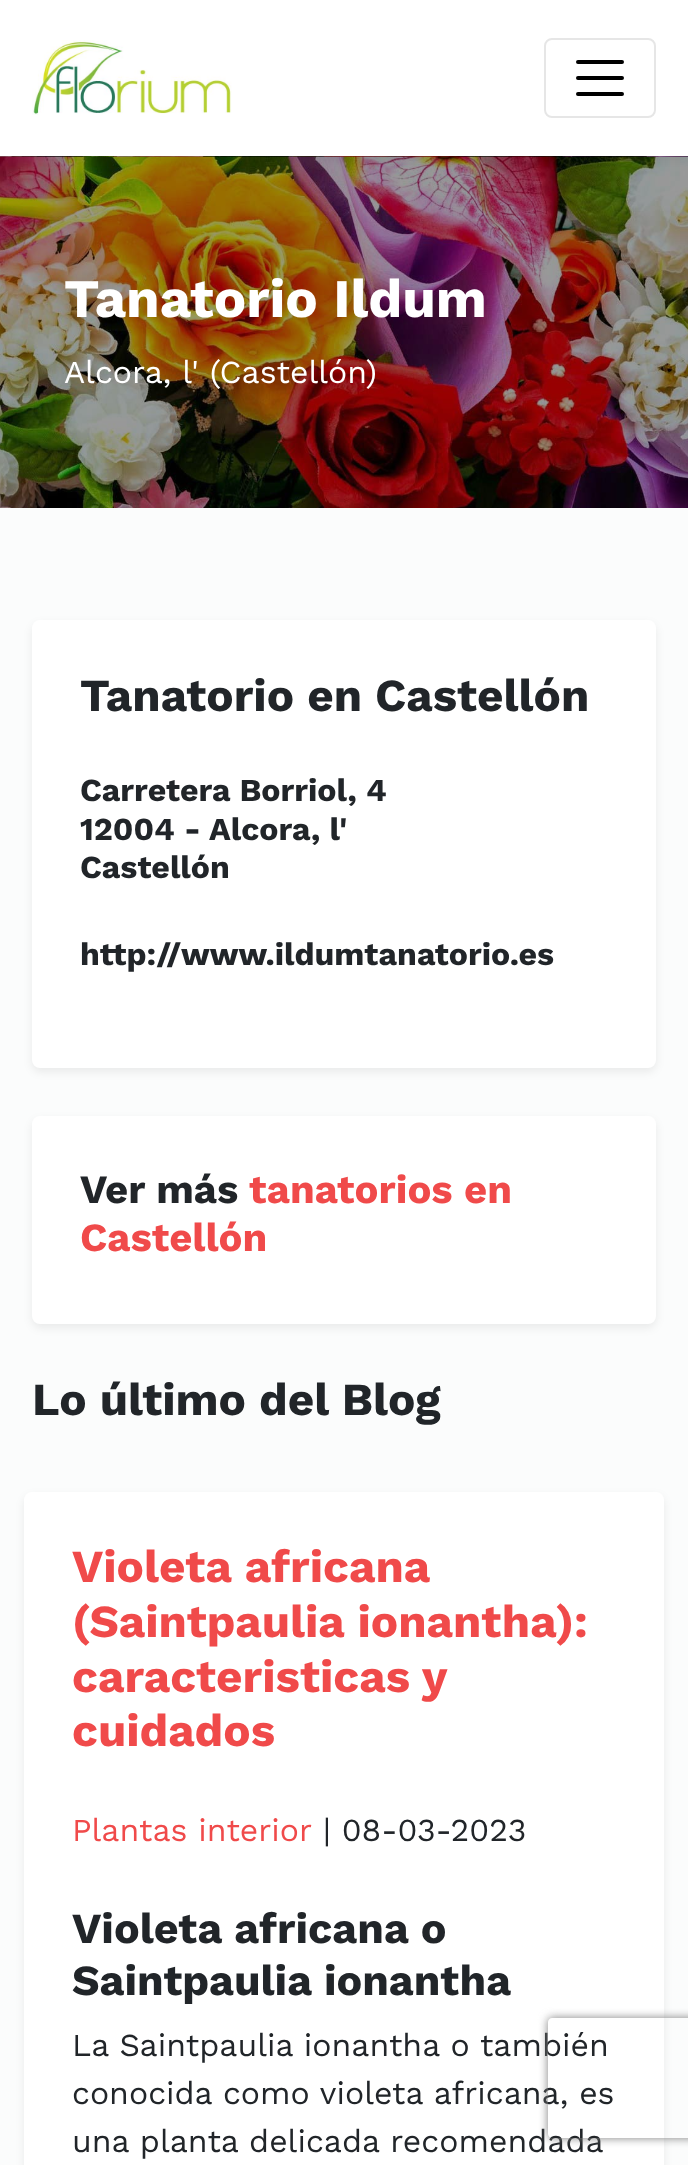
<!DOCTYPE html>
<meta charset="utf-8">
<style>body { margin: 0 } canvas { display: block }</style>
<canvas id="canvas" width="688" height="2165"></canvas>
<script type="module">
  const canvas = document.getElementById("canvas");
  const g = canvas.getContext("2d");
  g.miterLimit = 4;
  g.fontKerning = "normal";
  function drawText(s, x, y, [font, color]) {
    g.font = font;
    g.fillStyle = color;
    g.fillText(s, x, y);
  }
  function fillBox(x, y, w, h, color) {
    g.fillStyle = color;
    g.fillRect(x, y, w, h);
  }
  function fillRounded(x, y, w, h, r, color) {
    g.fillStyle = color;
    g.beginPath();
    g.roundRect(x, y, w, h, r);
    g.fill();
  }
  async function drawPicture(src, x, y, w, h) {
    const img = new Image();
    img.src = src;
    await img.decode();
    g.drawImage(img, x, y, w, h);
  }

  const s1 = ["bold 54.25px Work Sans", "#FFFFFF"];
  const s2 = ["32px Work Sans", "#FFFFFF"];
  const s3 = ["bold 45.75px Work Sans", "#212529"];
  const s4 = ["bold 32px Work Sans", "#212529"];
  const s5 = ["bold 40px Work Sans", "#212529"];
  const s6 = ["bold 40px Work Sans", "#F04A4A"];
  const s7 = ["bold 45.75px Work Sans", "#F04A4A"];
  const s8 = ["32px Work Sans", "#F04A4A"];
  const s9 = ["32px Work Sans", "#212529"];
  const s10 = ["bold 43px Work Sans", "#212529"];

  fillBox(0, 0, 688, 2165, "#FBFCFC");
  await drawPicture("pic2.png", 0, 156, 688, 352);
  g.fillStyle = "rgba(0, 0, 0, 0.05)";
  g.filter = "blur(4px)";
  g.beginPath();
  g.rect(0, 4, 688, 156);
  g.fill();
  g.filter = "none";
  fillBox(0, 0, 688, 156, "#FFFFFF");
  await drawPicture("pic1.png", 32, 40, 200, 75);
  g.beginPath();
  g.roundRect(545, 39, 110, 78, 7);
  g.strokeStyle = "#E6E6E6";
  g.lineWidth = 2;
  g.stroke();
  g.beginPath();
  g.moveTo(578, 62);
  g.lineTo(622, 62);
  g.moveTo(578, 78);
  g.lineTo(622, 78);
  g.moveTo(578, 94);
  g.lineTo(622, 94);
  g.strokeStyle = "#000000";
  g.lineWidth = 4;
  g.lineCap = "round";
  g.stroke();
  drawText("Tanatorio Ildum", 64, 317, s1);
  drawText("Alcora, l' (Castellón)", 64, 383, s2);
  g.fillStyle = "rgba(0, 0, 0, 0.07)";
  g.filter = "blur(4px)";
  g.beginPath();
  g.roundRect(32, 624, 624, 448, 8);
  g.fill();
  g.filter = "none";
  fillRounded(32, 620, 624, 448, 8, "#FFFFFF");
  drawText("Tanatorio en Castellón", 80, 711, s3);
  drawText("Carretera Borriol, 4", 80, 801, s4);
  drawText("12004 -", 80, 840, s4);
  drawText("Alcora, l'", 209, 840, s4);
  drawText("Castellón", 80, 878, s4);
  drawText("http://www.ildumtanatorio.es", 80, 965, s4);
  g.fillStyle = "rgba(0, 0, 0, 0.07)";
  g.filter = "blur(4px)";
  g.beginPath();
  g.roundRect(32, 1120, 624, 208, 8);
  g.fill();
  g.filter = "none";
  fillRounded(32, 1116, 624, 208, 8, "#FFFFFF");
  drawText("Ver más", 80, 1203, s5);
  drawText("tanatorios en", 249, 1203, s6);
  drawText("Castellón", 80, 1251, s6);
  drawText("Lo último del Blog", 32, 1415, s3);
  g.fillStyle = "rgba(0, 0, 0, 0.07)";
  g.filter = "blur(4px)";
  g.beginPath();
  g.roundRect(24, 1496, 640, 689, 8);
  g.fill();
  g.filter = "none";
  fillRounded(24, 1492, 640, 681, 8, "#FFFFFF");
  drawText("Violeta africana", 72, 1582, s7);
  drawText("(Saintpaulia ionantha):", 72, 1637, s7);
  g.wordSpacing = "-1px";
  drawText("caracteristicas y", 72, 1692, s7);
  g.wordSpacing = "0px";
  drawText("cuidados", 72, 1746, s7);
  drawText("Plantas interior", 72, 1841, s8);
  drawText("| 08-03-2023", 323, 1841, s9);
  drawText("Violeta africana o", 72, 1943, s10);
  drawText("Saintpaulia ionantha", 72, 1995, s10);
  drawText("La Saintpaulia ionantha o también", 72, 2056, s9);
  drawText("conocida como violeta africana, es", 72, 2104, s9);
  drawText("una planta delicada recomendada", 72, 2152, s9);
  g.save();
  g.beginPath();
  g.moveTo(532, 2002);
  g.lineTo(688, 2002);
  g.lineTo(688, 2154);
  g.lineTo(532, 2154);
  g.closePath();
  g.moveTo(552, 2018);
  g.lineTo(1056, 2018);
  g.bezierCurveTo(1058, 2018, 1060, 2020, 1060, 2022);
  g.lineTo(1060, 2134);
  g.bezierCurveTo(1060, 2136, 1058, 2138, 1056, 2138);
  g.lineTo(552, 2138);
  g.bezierCurveTo(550, 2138, 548, 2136, 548, 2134);
  g.lineTo(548, 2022);
  g.bezierCurveTo(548, 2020, 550, 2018, 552, 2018);
  g.closePath();
  g.clip("evenodd");
  g.fillStyle = "#808080";
  g.filter = "blur(5px)";
  g.beginPath();
  g.roundRect(548, 2018, 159, 120, 4);
  g.fill();
  g.filter = "none";
  g.restore();
</script>
